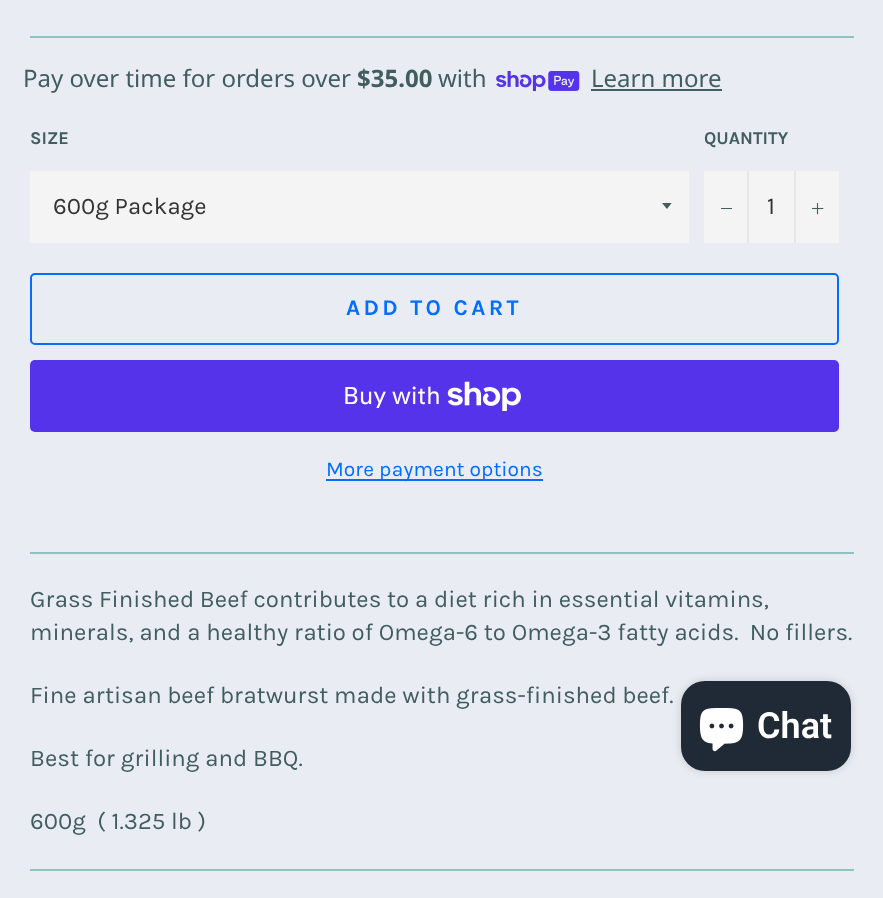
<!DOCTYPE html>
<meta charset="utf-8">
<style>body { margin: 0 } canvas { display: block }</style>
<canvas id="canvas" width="883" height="898"></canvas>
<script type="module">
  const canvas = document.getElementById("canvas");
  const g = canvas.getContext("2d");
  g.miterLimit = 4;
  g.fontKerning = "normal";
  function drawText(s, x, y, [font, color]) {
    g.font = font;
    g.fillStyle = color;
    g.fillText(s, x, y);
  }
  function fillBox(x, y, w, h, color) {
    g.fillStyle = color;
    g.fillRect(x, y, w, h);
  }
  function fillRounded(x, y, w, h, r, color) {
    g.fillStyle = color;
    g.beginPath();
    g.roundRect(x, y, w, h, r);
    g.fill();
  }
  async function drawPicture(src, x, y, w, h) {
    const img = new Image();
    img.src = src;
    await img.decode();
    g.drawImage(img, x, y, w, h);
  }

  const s1 = ["24px Noto Sans", "#415D5E"];
  const s2 = ["bold 24px Noto Sans", "#415D5E"];
  const s3 = ["bold 18px Karla", "#415D5E"];
  const s4 = ["24px Karla", "#333333"];
  const s5 = ["bold 22.5px Karla", "#006EFF"];
  const s6 = ["24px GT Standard", "#FFFFFF"];
  const s7 = ["21px Karla", "#006EFF"];
  const s8 = ["24px Karla", "#415D5E"];
  const s9 = ["600 36px Roboto", "#FFFFFF"];

  fillBox(0, 0, 883, 898, "#E9EDF3");
  fillBox(30, 36, 824, 2, "#8DC4C2");
  drawText("Pay over time for orders over", 23, 87, s1);
  drawText("$35.00", 357, 87, s2);
  drawText("with", 438, 87, s1);
  await drawPicture("pic1.png", 496, 71, 84, 21);
  drawText("Learn more", 591, 87, s1);
  fillBox(591, 89, 131, 2, "#415D5E");
  drawText("SIZE", 30, 144, s3);
  fillBox(30, 171, 659, 72, "#F4F4F4");
  g.save();
  g.beginPath();
  g.rect(662, 203, 12, 7);
  g.clip();
  g.fillStyle = "#415D5E";
  g.beginPath();
  g.moveTo(661.5, 202.5);
  g.lineTo(667, 209);
  g.lineTo(672, 202.5);
  g.closePath();
  g.fill();
  g.restore();
  drawText("600g Package", 53, 214, s4);
  drawText("QUANTITY", 704, 144, s3);
  fillBox(704, 171, 135, 72, "#F4F4F4");
  fillBox(747, 171, 2, 72, "#E7E7E7");
  fillBox(721, 208, 11, 1, "#415D5E");
  drawText("1", 767, 214, s4);
  fillBox(794, 171, 2, 72, "#E7E7E7");
  await drawPicture("pic2.png", 812, 203, 12, 12);
  g.beginPath();
  g.roundRect(31, 274, 807, 70, 4);
  g.strokeStyle = "#006EFF";
  g.lineWidth = 2;
  g.stroke();
  g.letterSpacing = "3.4px";
  drawText("ADD TO CART", 346, 315, s5);
  fillRounded(30, 360, 809, 72, 5, "#5433EB");
  g.letterSpacing = "0px";
  drawText("Buy with", 343, 404, s6);
  await drawPicture("pic3.png", 447, 381, 74, 30);
  fillBox(326, 479, 217, 2, "#006EFF");
  drawText("More payment options", 326, 476, s7);
  fillBox(30, 552, 824, 2, "#8DC4C2");
  drawText("Grass Finished Beef contributes to a diet rich in essential vitamins,", 30, 607, s8);
  drawText("minerals, and a healthy ratio of Omega-6 to Omega-3 fatty acids.  No fillers.", 30, 640, s8);
  drawText("Fine artisan beef bratwurst made with grass-finished beef.", 30, 703, s8);
  drawText("Best for grilling and BBQ.", 30, 766, s8);
  drawText("600g  ( 1.325 lb )", 30, 829, s8);
  fillBox(30, 869, 824, 2, "#8DC4C2");
  g.fillStyle = "rgba(0, 0, 0, 0.15)";
  g.filter = "blur(4px)";
  g.beginPath();
  g.roundRect(681, 681, 170, 90, 24);
  g.fill();
  g.filter = "none";
  fillRounded(681, 681, 170, 90, 24, "#202A36");
  await drawPicture("pic4.png", 699, 708, 45, 44);
  drawText("Chat", 757, 738, s9);
</script>
